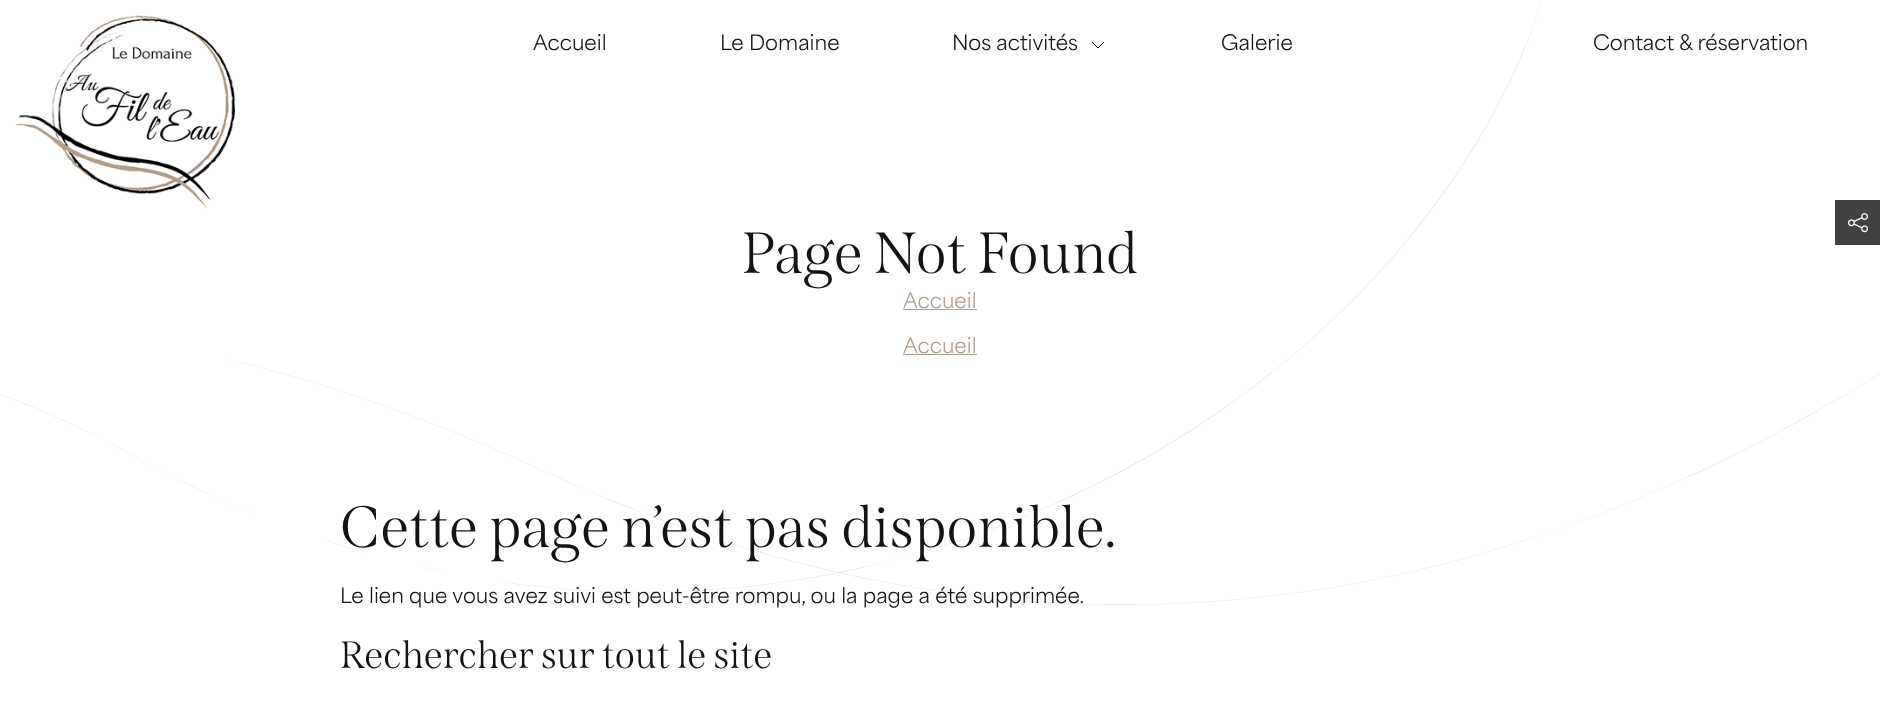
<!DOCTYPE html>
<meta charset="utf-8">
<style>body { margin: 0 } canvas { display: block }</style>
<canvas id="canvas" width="1880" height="701"></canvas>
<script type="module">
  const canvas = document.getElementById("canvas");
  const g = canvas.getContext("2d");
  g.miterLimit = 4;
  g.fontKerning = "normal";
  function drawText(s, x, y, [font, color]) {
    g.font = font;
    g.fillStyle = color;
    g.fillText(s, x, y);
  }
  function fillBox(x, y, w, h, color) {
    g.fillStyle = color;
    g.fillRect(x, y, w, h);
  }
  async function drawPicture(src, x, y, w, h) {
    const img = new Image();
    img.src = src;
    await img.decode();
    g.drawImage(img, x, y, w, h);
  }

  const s1 = ["20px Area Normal", "#131313"];
  const s2 = ["300 58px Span", "#131313"];
  const s3 = ["20px Area Normal", "#AF9D8B"];
  const s4 = ["300 38px Span", "#131313"];

  fillBox(0, 0, 1880, 701, "#FFFFFF");
  await drawPicture("pic1.png", 0, 0, 1880, 605);
  await drawPicture("pic2.png", 15, 15, 220, 194);
  drawText("Accueil", 533, 50, s1);
  drawText("Le Domaine", 720, 50, s1);
  drawText("Nos activités", 952, 50, s1);
  g.beginPath();
  g.moveTo(1104, 42);
  g.lineTo(1098, 48);
  g.lineTo(1092, 42);
  g.strokeStyle = "#131313";
  g.stroke();
  drawText("Galerie", 1221, 50, s1);
  drawText("Contact & réservation", 1593, 50, s1);
  fillBox(1835, 200, 45, 45, "#424242");
  await drawPicture("pic3.png", 1848, 213, 20, 20);
  drawText("Page Not Found", 742, 273, s2);
  drawText("Accueil", 903, 308, s3);
  fillBox(903, 309, 74, 1, "#AF9D8B");
  drawText("Accueil", 903, 353, s3);
  fillBox(903, 354, 74, 1, "#AF9D8B");
  drawText("Cette page n’est pas disponible.", 340, 547, s2);
  drawText("Le lien que vous avez suivi est peut-être rompu, ou la page a été supprimée.", 340, 603, s1);
  drawText("Rechercher sur tout le site", 340, 668, s4);
</script>
